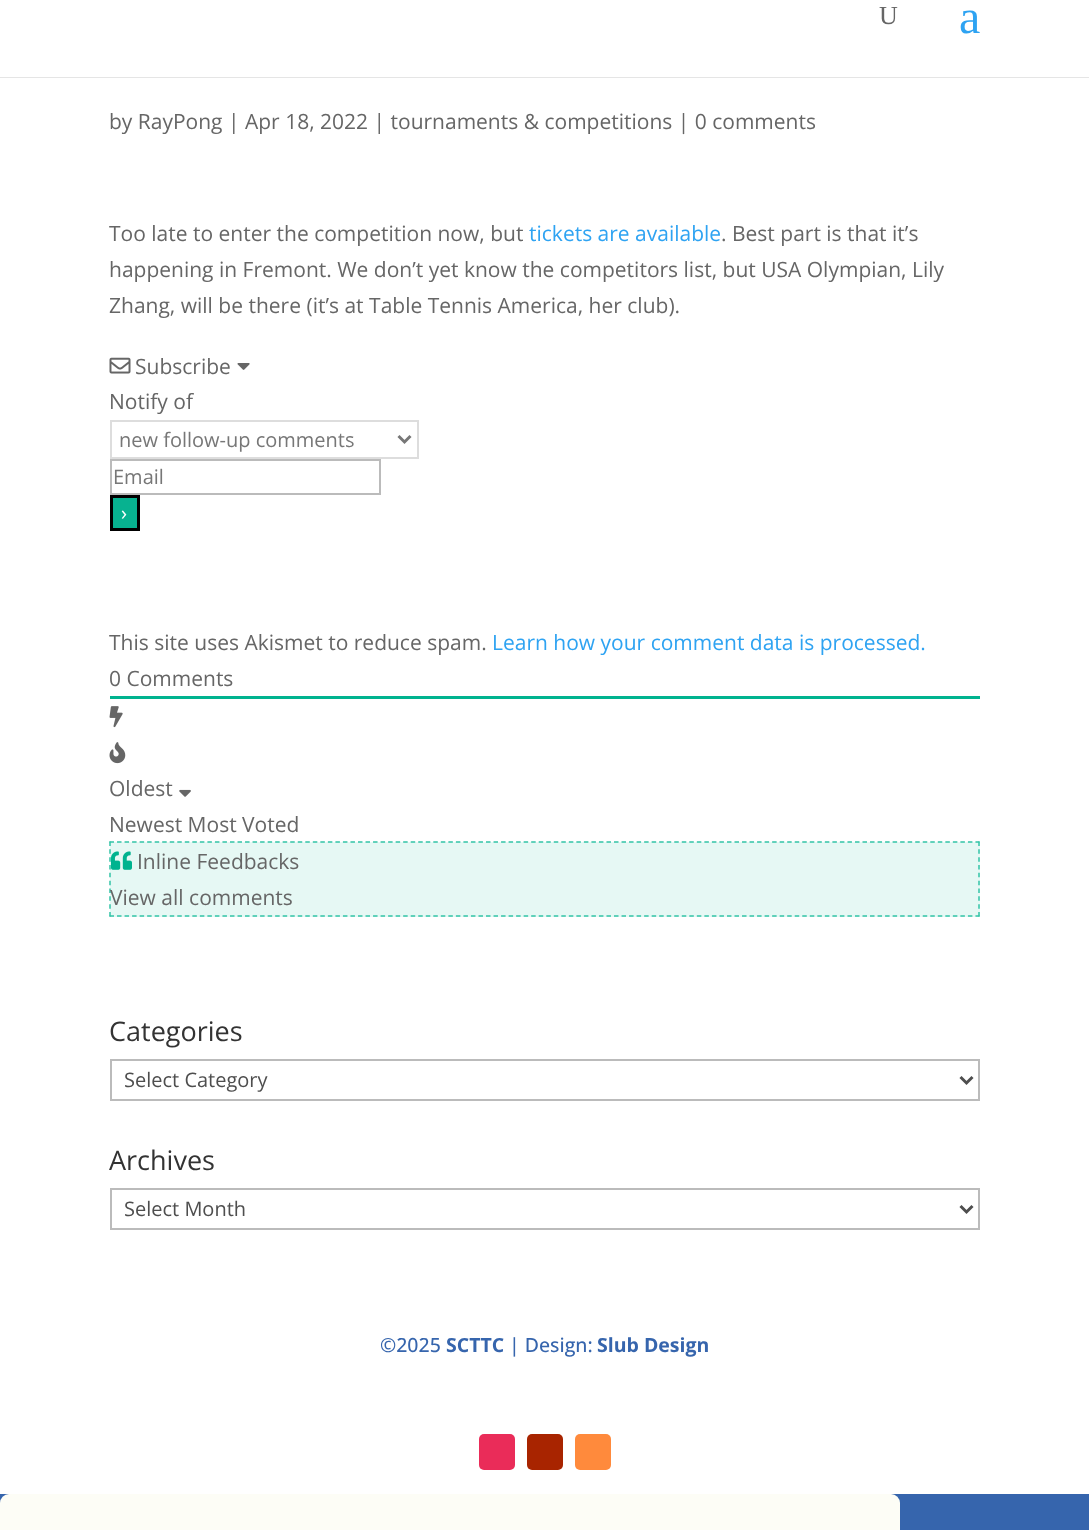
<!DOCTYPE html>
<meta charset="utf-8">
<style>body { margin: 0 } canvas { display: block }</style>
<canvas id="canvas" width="1089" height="1530"></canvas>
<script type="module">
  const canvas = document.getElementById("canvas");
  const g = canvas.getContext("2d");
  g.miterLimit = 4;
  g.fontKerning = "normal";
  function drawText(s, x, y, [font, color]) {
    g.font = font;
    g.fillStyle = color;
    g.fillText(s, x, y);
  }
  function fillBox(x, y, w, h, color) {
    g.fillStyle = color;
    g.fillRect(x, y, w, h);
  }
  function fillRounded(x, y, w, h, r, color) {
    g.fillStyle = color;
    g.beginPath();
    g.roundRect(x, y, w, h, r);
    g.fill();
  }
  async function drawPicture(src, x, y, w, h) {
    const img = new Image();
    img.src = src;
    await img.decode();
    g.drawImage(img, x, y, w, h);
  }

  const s1 = ["26px Liberation Serif", "#666666"];
  const s2 = ["48px Liberation Serif", "#2EA3F2"];
  const s3 = ["21px Open Sans", "#666666"];
  const s4 = ["21px Open Sans", "#2EA3F2"];
  const s5 = ["20px Open Sans", "#777777"];
  const s6 = ["20px Open Sans", "#FFFFFF"];
  const s7 = ["27px Open Sans", "#333333"];
  const s8 = ["20px Open Sans", "#4E4E4E"];
  const s9 = ["500 19.5px Open Sans", "#3665AD"];
  const s10 = ["bold 19.5px Open Sans", "#3665AD"];

  fillBox(0, 0, 1089, 1530, "#3665AD");
  fillBox(0, 0, 1089, 1494, "#FFFFFF");
  fillBox(0, 77, 1089, 1, "rgba(0, 0, 0, 0.1)");
  drawText("U", 879, 24, s1);
  drawText("a", 959, 33, s2);
  drawText("by RayPong | Apr 18, 2022 | tournaments & competitions | 0 comments", 109, 129, s3);
  drawText("Too late to enter the competition now, but", 109, 241, s3);
  drawText("tickets are available", 529, 241, s4);
  drawText(". Best part is that it’s", 721, 241, s3);
  drawText("happening in Fremont. We don’t yet know the competitors list, but USA Olympian, Lily", 109, 277, s3);
  drawText("Zhang, will be there (it’s at Table Tennis America, her club).", 109, 313, s3);
  await drawPicture("pic1.png", 109, 357, 22, 17);
  drawText("Subscribe", 135, 374, s3);
  await drawPicture("pic2.png", 237, 363, 13, 7);
  drawText("Notify of", 109, 409, s3);
  g.strokeStyle = "#DDDDDD";
  g.lineWidth = 2;
  g.strokeRect(111, 421, 307, 37);
  g.beginPath();
  g.moveTo(398.5, 436);
  g.lineTo(404.5, 442);
  g.lineTo(410.5, 436);
  g.strokeStyle = "#777777";
  g.lineWidth = 3;
  g.stroke();
  drawText("new follow-up comments", 119, 447, s5);
  g.strokeStyle = "#BBBBBB";
  g.lineWidth = 2;
  g.strokeRect(111, 460, 269, 34);
  drawText("Email", 113, 484, s5);
  g.fillStyle = "#07B290";
  g.beginPath();
  g.rect(111.5, 496.5, 27, 33);
  g.fill();
  g.strokeStyle = "#000000";
  g.lineWidth = 3;
  g.stroke();
  drawText("›", 121, 520, s6);
  drawText("This site uses Akismet to reduce spam.", 109, 650, s3);
  drawText("Learn how your comment data is processed.", 492, 650, s4);
  fillBox(110, 696, 870, 3, "#00B38F");
  drawText("0 Comments", 109, 686, s3);
  await drawPicture("pic3.png", 109, 706, 14, 22);
  await drawPicture("pic4.png", 109, 742, 17, 22);
  drawText("Oldest", 109, 796, s3);
  await drawPicture("pic5.png", 179, 789, 12, 8);
  drawText("Newest Most Voted", 109, 832, s3);
  fillBox(110, 842, 870, 75, "#E6F8F4");
  g.beginPath();
  g.moveTo(109.5, 842);
  g.lineTo(979.5, 842);
  g.strokeStyle = "#33C3A6";
  g.lineWidth = 1.5;
  g.setLineDash([4.5, 3.03]);
  g.stroke();
  g.beginPath();
  g.moveTo(979, 841.5);
  g.lineTo(979, 916.5);
  g.setLineDash([4.5, 3.33]);
  g.stroke();
  g.beginPath();
  g.moveTo(109.5, 916);
  g.lineTo(979.5, 916);
  g.setLineDash([4.5, 3.03]);
  g.stroke();
  g.beginPath();
  g.moveTo(110, 841.5);
  g.lineTo(110, 916.5);
  g.setLineDash([4.5, 3.33]);
  g.stroke();
  await drawPicture("pic6.png", 111, 851, 21, 19);
  drawText("Inline Feedbacks", 137, 869, s3);
  drawText("View all comments", 110, 905, s3);
  drawText("Categories", 109, 1041, s7);
  g.strokeStyle = "#BBBBBB";
  g.lineWidth = 2;
  g.setLineDash([]);
  g.strokeRect(111, 1060, 868, 40);
  g.beginPath();
  g.moveTo(960.5, 1077);
  g.lineTo(966.5, 1083);
  g.lineTo(972.5, 1077);
  g.strokeStyle = "#4E4E4E";
  g.lineWidth = 3;
  g.stroke();
  drawText("Select Category", 124, 1087, s8);
  drawText("Archives", 109, 1170, s7);
  g.strokeStyle = "#BBBBBB";
  g.lineWidth = 2;
  g.strokeRect(111, 1189, 868, 40);
  g.beginPath();
  g.moveTo(960.5, 1206);
  g.lineTo(966.5, 1212);
  g.lineTo(972.5, 1206);
  g.strokeStyle = "#4E4E4E";
  g.lineWidth = 3;
  g.stroke();
  drawText("Select Month", 124, 1216, s8);
  drawText("©2025", 380, 1352, s9);
  drawText("SCTTC", 446, 1352, s10);
  drawText("| Design:", 509, 1352, s9);
  drawText("Slub Design", 597, 1352, s10);
  fillRounded(479, 1434, 36, 36, 5, "#EA2C59");
  fillRounded(527, 1434, 36, 36, 5, "#A82400");
  fillRounded(575, 1434, 36, 36, 5, "#FF8A3C");
  fillRounded(0, 1494, 900, 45, 9, "#FDFDF6");
</script>
